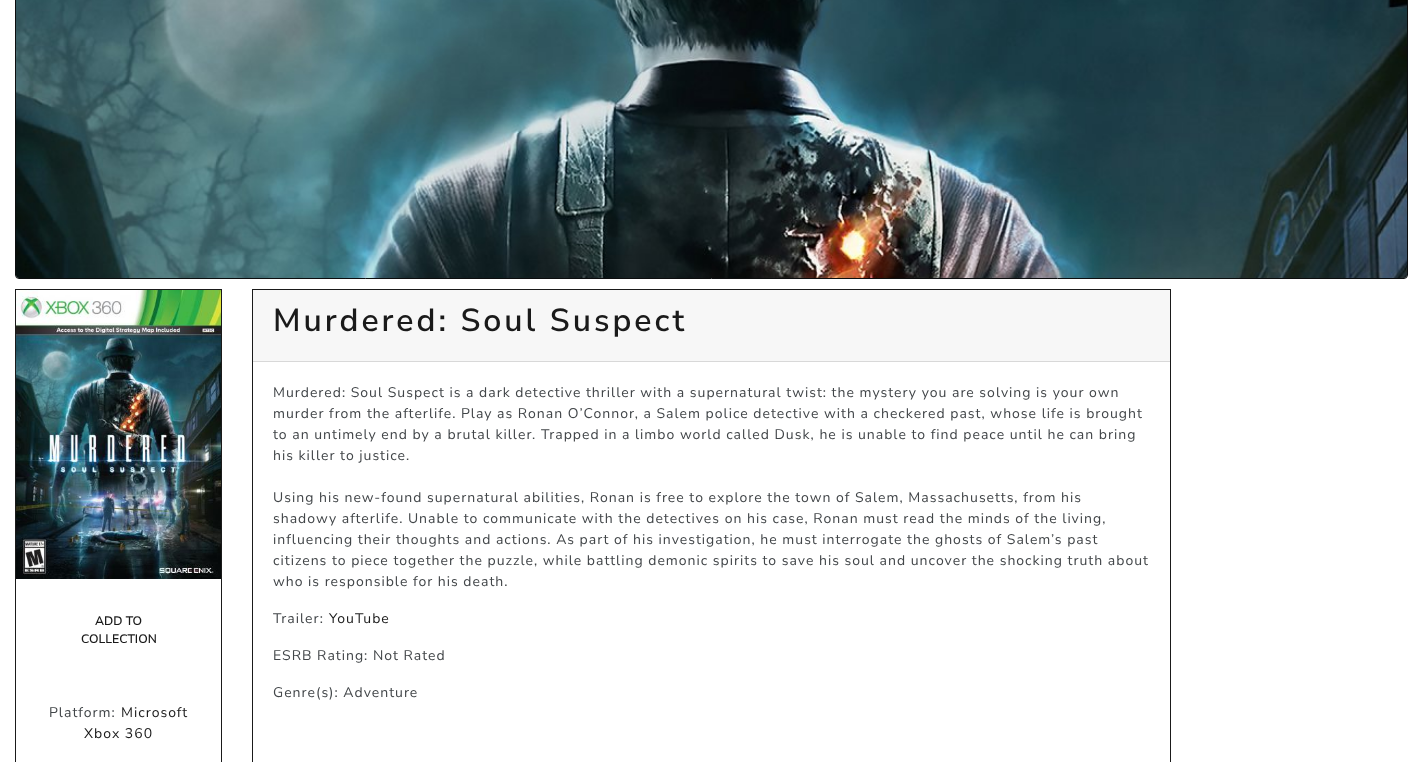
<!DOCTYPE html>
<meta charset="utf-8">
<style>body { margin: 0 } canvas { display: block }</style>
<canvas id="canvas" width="1423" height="762"></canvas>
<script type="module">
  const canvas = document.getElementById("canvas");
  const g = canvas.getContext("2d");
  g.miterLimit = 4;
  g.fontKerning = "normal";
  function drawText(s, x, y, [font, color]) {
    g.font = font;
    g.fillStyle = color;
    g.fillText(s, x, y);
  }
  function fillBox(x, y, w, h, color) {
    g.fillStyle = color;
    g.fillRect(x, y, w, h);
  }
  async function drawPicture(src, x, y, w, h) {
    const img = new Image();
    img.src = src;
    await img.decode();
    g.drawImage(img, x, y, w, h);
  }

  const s1 = ["600 12.25px Nunito Sans", "#1A1A1A"];
  const s2 = ["14px Nunito Sans", "#424649"];
  const s3 = ["14px Nunito Sans", "#1A1A1A"];
  const s4 = ["600 32px Nunito Sans", "#1A1A1A"];

  fillBox(0, 0, 1423, 762, "#FFFFFF");
  g.beginPath();
  g.roundRect(15.5, -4.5, 1392, 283, 3.5);
  g.strokeStyle = "#0C0D0E";
  g.stroke();
  await drawPicture("pic1.png", 16, 0, 1391, 278);
  g.strokeStyle = "#1A1A1A";
  g.strokeRect(15.5, 289.5, 206, 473);
  await drawPicture("pic2.png", 16, 290, 205, 289);
  drawText("ADD TO", 95, 625, s1);
  drawText("COLLECTION", 81, 643, s1);
  g.letterSpacing = "1px";
  drawText("Platform:", 49, 717, s2);
  drawText("Microsoft", 121, 717, s3);
  drawText("Xbox 360", 84, 738, s3);
  g.strokeRect(252.5, 289.5, 918, 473);
  fillBox(253, 290, 917, 71, "#F7F7F7");
  fillBox(253, 361, 917, 1, "#D8D8D8");
  g.letterSpacing = "3px";
  drawText("Murdered: Soul Suspect", 273, 331, s4);
  g.letterSpacing = "1px";
  drawText("Murdered: Soul Suspect is a dark detective thriller with a supernatural twist: the mystery you are solving is your own", 273, 397, s2);
  drawText("murder from the afterlife. Play as Ronan O’Connor, a Salem police detective with a checkered past, whose life is brought", 273, 418, s2);
  drawText("to an untimely end by a brutal killer. Trapped in a limbo world called Dusk, he is unable to find peace until he can bring", 273, 439, s2);
  drawText("his killer to justice.", 273, 460, s2);
  drawText("Using his new-found supernatural abilities, Ronan is free to explore the town of Salem, Massachusetts, from his", 273, 502, s2);
  drawText("shadowy afterlife. Unable to communicate with the detectives on his case, Ronan must read the minds of the living,", 273, 523, s2);
  drawText("influencing their thoughts and actions. As part of his investigation, he must interrogate the ghosts of Salem’s past", 273, 544, s2);
  drawText("citizens to piece together the puzzle, while battling demonic spirits to save his soul and uncover the shocking truth about", 273, 565, s2);
  drawText("who is responsible for his death.", 273, 586, s2);
  drawText("Trailer:", 273, 623, s2);
  drawText("YouTube", 329, 623, s3);
  drawText("ESRB Rating: Not Rated", 273, 660, s2);
  drawText("Genre(s): Adventure", 273, 697, s2);
</script>
